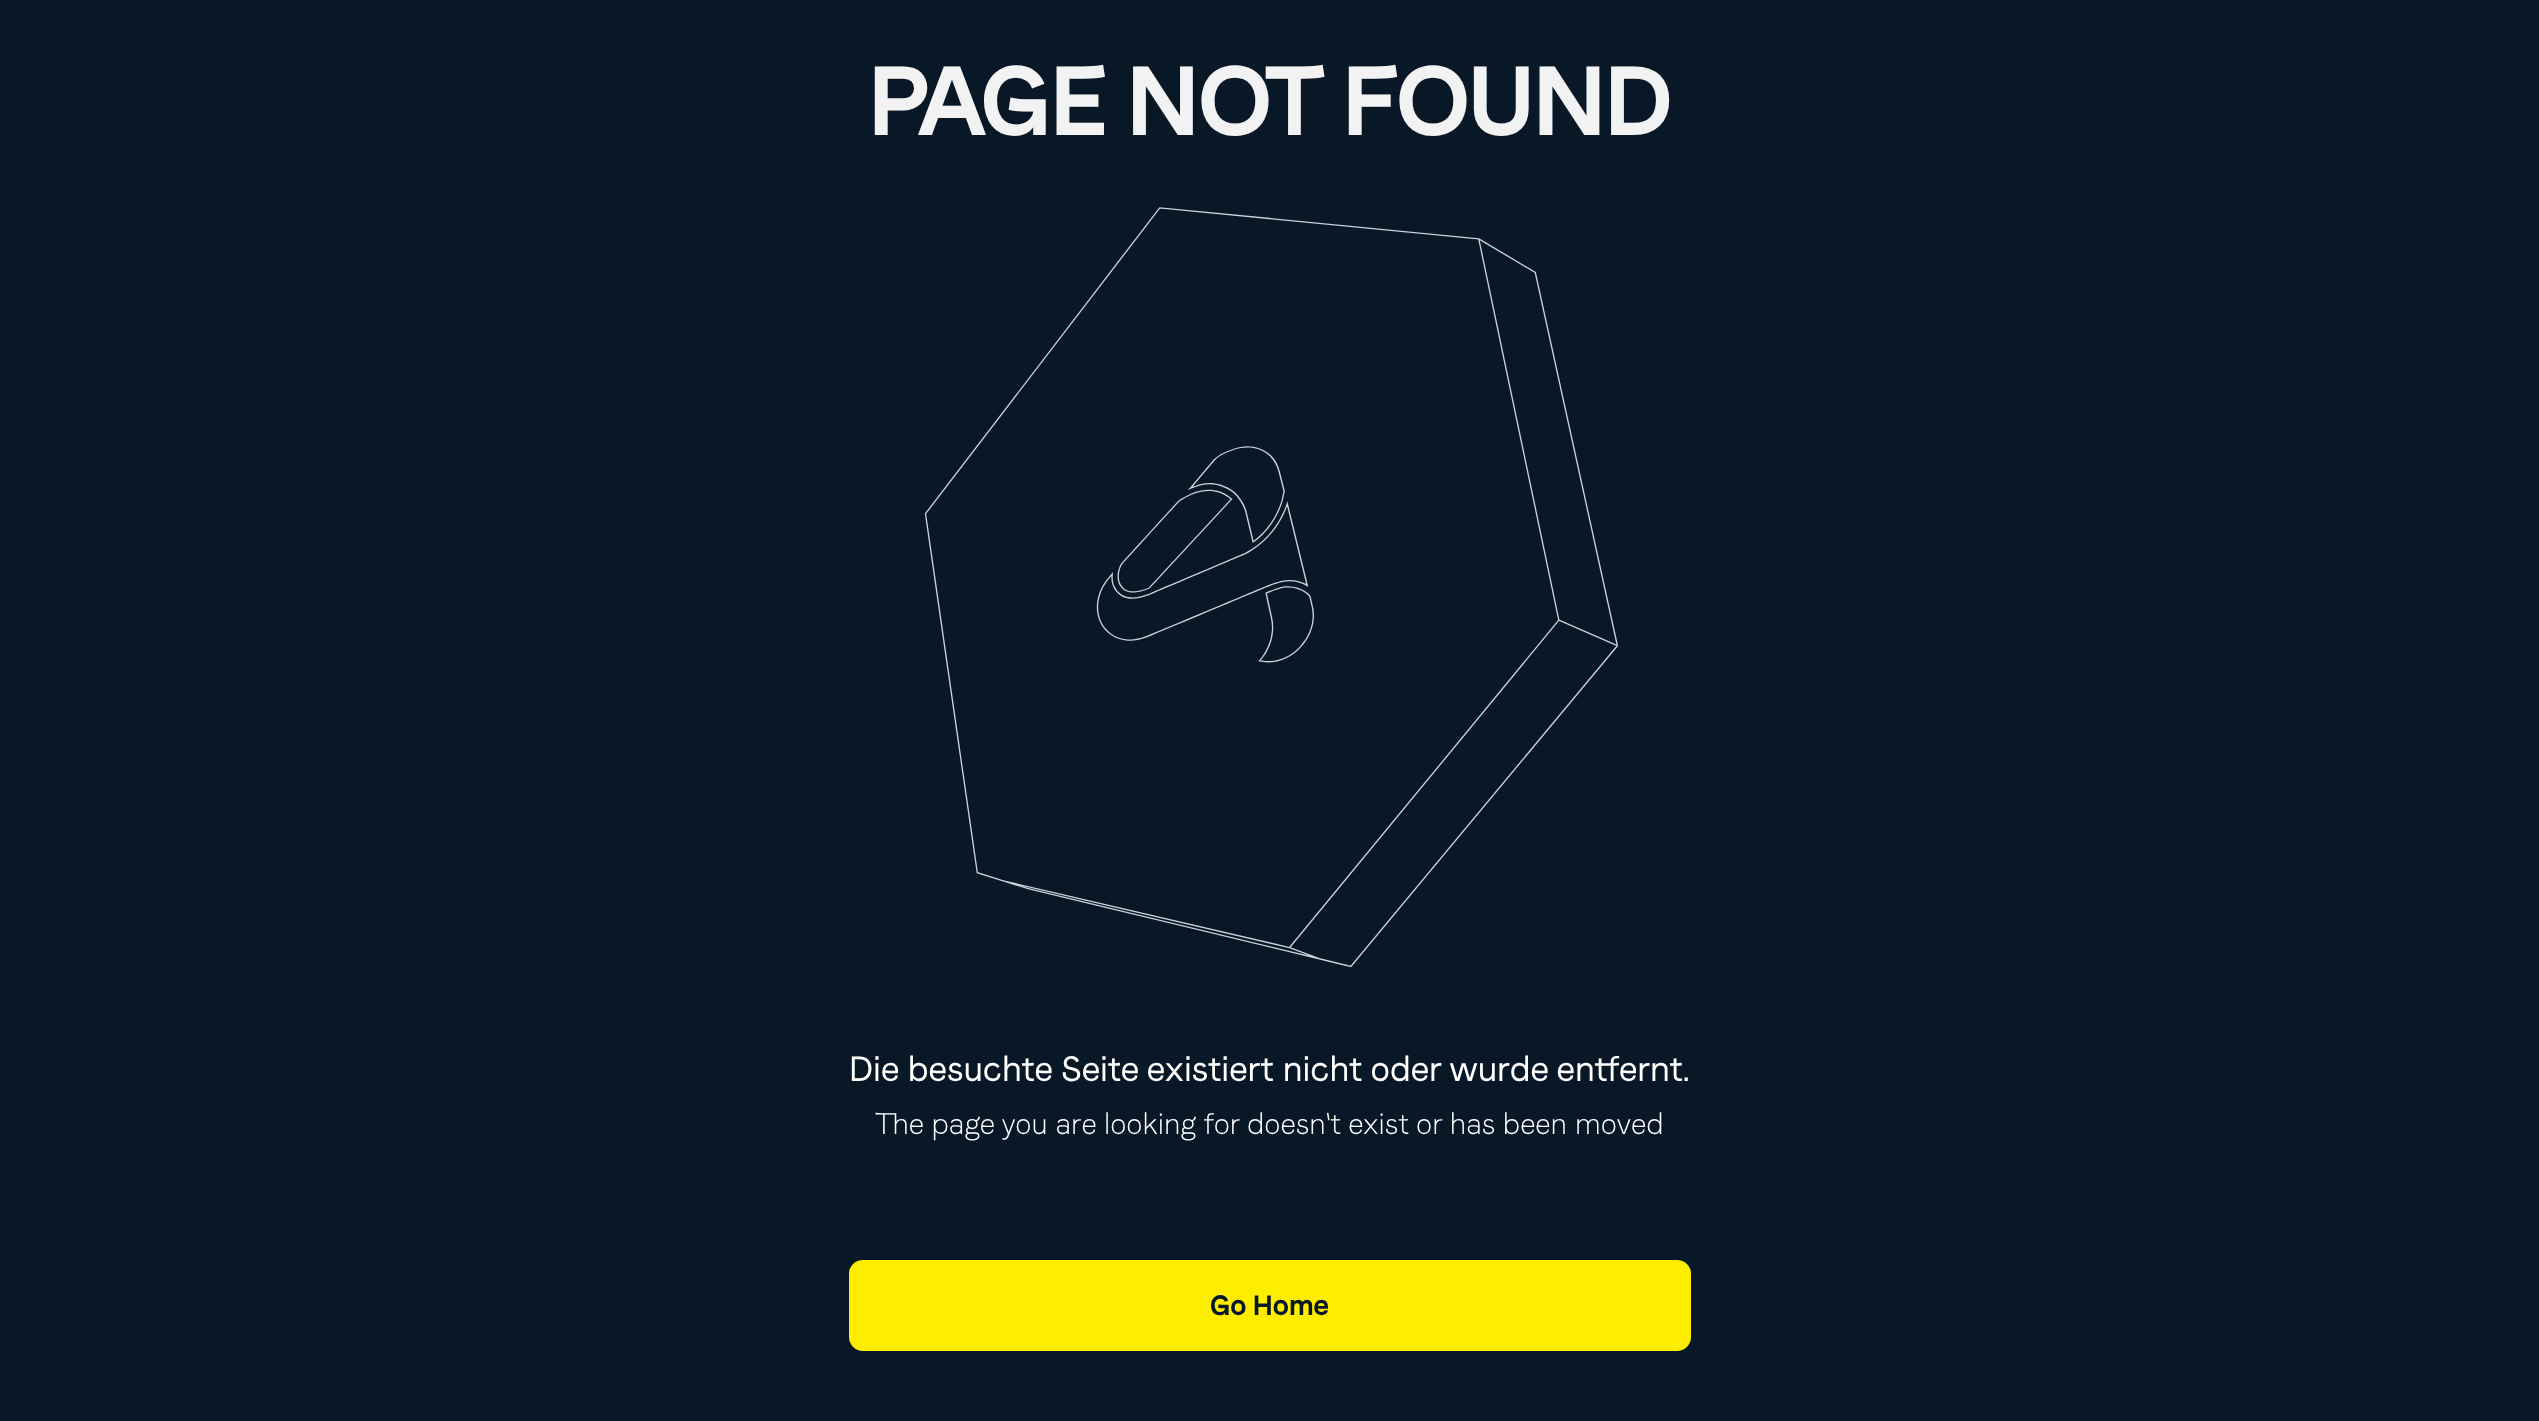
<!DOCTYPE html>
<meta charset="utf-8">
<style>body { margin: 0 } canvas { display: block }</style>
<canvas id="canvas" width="2539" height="1421"></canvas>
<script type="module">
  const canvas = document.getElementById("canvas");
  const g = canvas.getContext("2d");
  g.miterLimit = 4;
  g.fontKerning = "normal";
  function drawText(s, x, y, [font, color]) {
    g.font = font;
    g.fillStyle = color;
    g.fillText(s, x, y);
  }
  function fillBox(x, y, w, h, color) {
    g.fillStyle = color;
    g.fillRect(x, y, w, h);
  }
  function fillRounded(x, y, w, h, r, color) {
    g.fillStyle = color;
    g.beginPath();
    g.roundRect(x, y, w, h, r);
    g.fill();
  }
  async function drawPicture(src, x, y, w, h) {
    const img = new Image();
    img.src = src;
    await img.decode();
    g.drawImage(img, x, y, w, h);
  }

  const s1 = ["bold 98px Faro", "#F2F2F2"];
  const s2 = ["35px Faro", "#FFFFFF"];
  const s3 = ["300 29.75px Faro", "#FFFFFF"];
  const s4 = ["bold 28px Faro", "#081826"];

  fillBox(0, 0, 2539, 1421, "#081826");
  g.letterSpacing = "-1.75px";
  drawText("PAGE NOT FOUND", 868, 135, s1);
  await drawPicture("pic1.png", 924, 207, 694, 761);
  g.letterSpacing = "0px";
  drawText("Die besuchte Seite existiert nicht oder wurde entfernt.", 849, 1081, s2);
  drawText("The page you are looking for doesn't exist or has been moved", 875, 1134, s3);
  fillRounded(849, 1260, 842, 91, 14, "#FFED00");
  drawText("Go Home", 1210, 1315, s4);
</script>
